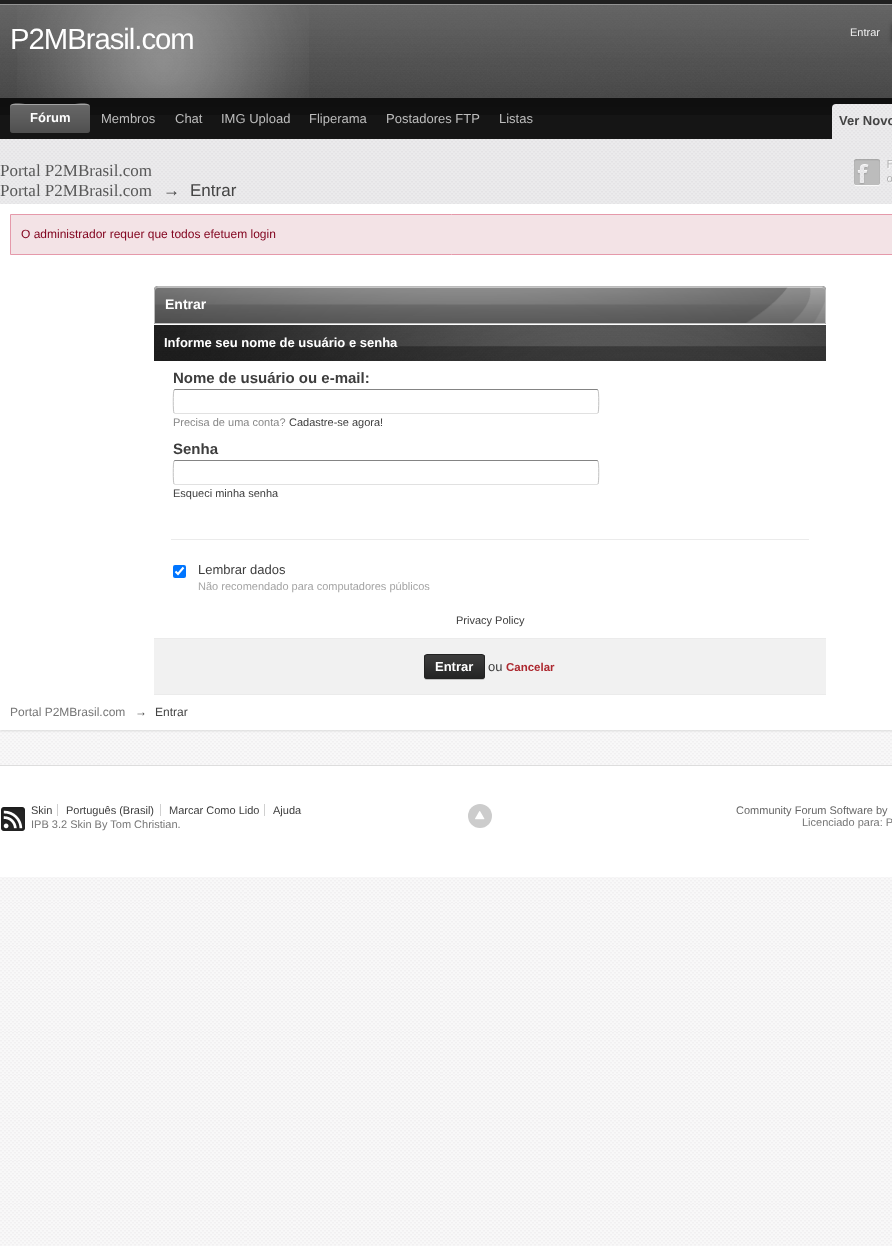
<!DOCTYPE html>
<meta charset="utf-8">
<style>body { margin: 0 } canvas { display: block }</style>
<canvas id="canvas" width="892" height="1246"></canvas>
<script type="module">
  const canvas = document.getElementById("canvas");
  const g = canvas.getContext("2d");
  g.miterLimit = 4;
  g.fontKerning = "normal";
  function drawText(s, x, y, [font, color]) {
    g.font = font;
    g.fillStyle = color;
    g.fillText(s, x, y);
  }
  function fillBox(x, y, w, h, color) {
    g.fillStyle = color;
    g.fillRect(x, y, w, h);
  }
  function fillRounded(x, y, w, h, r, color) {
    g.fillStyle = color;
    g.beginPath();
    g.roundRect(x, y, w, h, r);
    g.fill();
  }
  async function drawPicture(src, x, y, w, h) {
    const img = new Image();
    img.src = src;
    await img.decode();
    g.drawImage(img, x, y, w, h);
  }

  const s1 = ["29.25px Liberation Sans", "#FFFFFF"];
  const s2 = ["11px Liberation Sans", "#EEEEEE"];
  const s3 = ["bold 13px Liberation Sans", "#FFFFFF"];
  const s4 = ["13px Liberation Sans", "#BDBDBD"];
  const s5 = ["bold 13px Liberation Sans", "#444444"];
  const s6 = ["17px Liberation Serif", "#585858"];
  const s7 = ["17px Liberation Sans", "#444444"];
  const s8 = ["12px Liberation Sans", "#80001C"];
  const s9 = ["bold 14px Liberation Sans", "#FFFFFF"];
  const s10 = ["bold 15px Liberation Sans", "#3D3D3D"];
  const s11 = ["11px Liberation Sans", "#888888"];
  const s12 = ["11px Liberation Sans", "#3D3D3D"];
  const s13 = ["13px Liberation Sans", "#3D3D3D"];
  const s14 = ["11px Liberation Sans", "#A4A4A4"];
  const s15 = ["bold 11.5px Liberation Sans", "#AD2930"];
  const s16 = ["12px Liberation Sans", "#777777"];
  const s17 = ["12px Liberation Sans", "#444444"];
  const s18 = ["11px Liberation Sans", "#777777"];
  const s19 = ["11px Liberation Sans", "#676767"];

  fillBox(0, 0, 892, 1246, "#FFFFFF");
  await drawPicture("pic1.png", 0, 877, 892, 369);
  await drawPicture("pic2.png", 0, 730, 892, 35);
  fillBox(0, 0, 892, 4, "#202020");
  fillBox(0, 4, 892, 94, "#787878");
  await drawPicture("pic3.png", 0, 4, 892, 94);
  fillBox(0, 4, 892, 1, "rgba(255, 255, 255, 0.3)");
  await drawPicture("pic4.png", 17, 4, 292, 94);
  g.letterSpacing = "-1px";
  drawText("P2MBrasil.com", 10, 49, s1);
  g.letterSpacing = "0px";
  drawText("Entrar", 850, 36, s2);
  g.fillStyle = "rgba(0, 0, 0, 0.4)";
  g.filter = "blur(2px)";
  g.beginPath();
  g.roundRect(892, 23, 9, 20, 3);
  g.fill();
  g.filter = "none";
  fillBox(0, 98, 892, 41, "#151515");
  await drawPicture("pic5.png", 0, 98, 892, 17);
  fillRounded(10, 104, 80, 29, 3, "#787878");
  await drawPicture("pic6.png", 10, 104, 80, 29);
  g.fillStyle = "rgba(255, 255, 255, 0.4)";
  g.beginPath();
  g.moveTo(13, 105);
  g.lineTo(87, 105);
  g.bezierCurveTo(89, 105, 90, 106, 90, 108);
  g.bezierCurveTo(90, 101, 79, 104, 75, 104);
  g.lineTo(25, 104);
  g.bezierCurveTo(21, 104, 10, 101, 10, 108);
  g.bezierCurveTo(10, 106, 11, 105, 13, 105);
  g.closePath();
  g.fill();
  drawText("Fórum", 30, 122, s3);
  drawText("Membros", 101, 123, s4);
  drawText("Chat", 175, 123, s4);
  drawText("IMG Upload", 221, 123, s4);
  drawText("Fliperama", 309, 123, s4);
  drawText("Postadores FTP", 386, 123, s4);
  drawText("Listas", 499, 123, s4);
  g.fillStyle = "#DBDBDB";
  g.filter = "blur(1px)";
  g.beginPath();
  g.rect(0, 205, 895, 526);
  g.fill();
  g.filter = "none";
  await drawPicture("pic8.png", 0, 139, 892, 65);
  await drawPicture("pic7.png", 832, 104, 60, 36);
  drawText("Ver Novo", 839, 125, s5);
  drawText("Portal P2MBrasil.com", 0, 176, s6);
  drawText("Portal P2MBrasil.com", 0, 196, s6);
  drawText("→", 163, 196, s7);
  drawText("Entrar", 190, 196, s7);
  await drawPicture("pic9.png", 853, 159, 39, 27);
  await drawPicture("pic10.png", 854, 159, 38, 26);
  fillBox(0, 204, 892, 526, "#FFFFFF");
  g.fillStyle = "#F3E3E6";
  g.beginPath();
  g.rect(10.5, 214.5, 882, 40);
  g.fill();
  g.strokeStyle = "#E599AA";
  g.stroke();
  drawText("O administrador requer que todos efetuem login", 21, 238, s8);
  g.fillStyle = "#787878";
  g.beginPath();
  g.roundRect(154, 286, 672, 38, [4, 4, 0, 0]);
  g.fill();
  await drawPicture("pic11.png", 154, 286, 672, 37);
  g.fillStyle = "rgba(255, 255, 255, 0.5)";
  g.beginPath();
  g.moveTo(158, 288);
  g.lineTo(822, 288);
  g.bezierCurveTo(824, 288, 825, 289, 825, 291);
  g.lineTo(825, 290);
  g.bezierCurveTo(825, 288, 824, 287, 822, 287);
  g.lineTo(158, 287);
  g.bezierCurveTo(156, 287, 155, 288, 155, 290);
  g.lineTo(155, 291);
  g.bezierCurveTo(155, 289, 156, 288, 158, 288);
  g.closePath();
  g.fill();
  g.beginPath();
  g.roundRect(154.5, 286.5, 671, 37, [3.5, 3.5, 0, 0]);
  g.strokeStyle = "#BBBBBB";
  g.stroke();
  drawText("Entrar", 165, 309, s9);
  fillBox(154, 325, 672, 36, "#222222");
  await drawPicture("pic12.png", 154, 325, 672, 36);
  drawText("Informe seu nome de usuário e senha", 164, 347, s3);
  drawText("Nome de usuário ou e-mail:", 173, 383, s10);
  g.beginPath();
  g.moveTo(174, 390);
  g.lineTo(175, 389.5);
  g.lineTo(597, 389.5);
  g.lineTo(598, 390);
  g.strokeStyle = "#848484";
  g.stroke();
  g.beginPath();
  g.moveTo(598, 390);
  g.bezierCurveTo(599, 391, 599, 412, 598, 413);
  g.strokeStyle = "#C1C1C1";
  g.stroke();
  g.beginPath();
  g.moveTo(598, 413);
  g.lineTo(597, 413.5);
  g.lineTo(175, 413.5);
  g.lineTo(174, 413);
  g.strokeStyle = "#E1E1E1";
  g.stroke();
  g.beginPath();
  g.moveTo(174, 413);
  g.bezierCurveTo(173, 412, 173, 391, 174, 390);
  g.strokeStyle = "#C1C1C1";
  g.stroke();
  drawText("Precisa de uma conta?", 173, 426, s11);
  drawText("Cadastre-se agora!", 289, 426, s12);
  drawText("Senha", 173, 454, s10);
  g.beginPath();
  g.moveTo(174, 461);
  g.lineTo(175, 460.5);
  g.lineTo(597, 460.5);
  g.lineTo(598, 461);
  g.strokeStyle = "#848484";
  g.stroke();
  g.beginPath();
  g.moveTo(598, 461);
  g.bezierCurveTo(599, 462, 599, 483, 598, 484);
  g.strokeStyle = "#C1C1C1";
  g.stroke();
  g.beginPath();
  g.moveTo(598, 484);
  g.lineTo(597, 484.5);
  g.lineTo(175, 484.5);
  g.lineTo(174, 484);
  g.strokeStyle = "#E1E1E1";
  g.stroke();
  g.beginPath();
  g.moveTo(174, 484);
  g.bezierCurveTo(173, 483, 173, 462, 174, 461);
  g.strokeStyle = "#C1C1C1";
  g.stroke();
  drawText("Esqueci minha senha", 173, 497, s12);
  fillBox(171, 539, 638, 1, "#EBEBEB");
  fillRounded(173, 565, 13, 13, 2, "#0075FF");
  g.beginPath();
  g.moveTo(175.5, 571.5);
  g.lineTo(178, 574);
  g.lineTo(183.5, 567.5);
  g.strokeStyle = "#FFFFFF";
  g.lineWidth = 2.1;
  g.stroke();
  drawText("Lembrar dados", 198, 574, s13);
  drawText("Não recomendado para computadores públicos", 198, 590, s14);
  drawText("Privacy Policy", 456, 624, s12);
  fillBox(154, 639, 672, 55, "#F1F1F1");
  fillBox(154, 638, 672, 1, "#EBEBEB");
  fillBox(154, 694, 672, 1, "#EBEBEB");
  g.fillStyle = "rgba(0, 0, 0, 0.2)";
  g.filter = "blur(0.5px)";
  g.beginPath();
  g.roundRect(424, 655, 61, 25, 3);
  g.fill();
  g.filter = "none";
  await drawPicture("pic13.png", 424, 655, 61, 24);
  g.beginPath();
  g.roundRect(424.5, 654.5, 60, 24, 2.5);
  g.strokeStyle = "#222222";
  g.lineWidth = 1;
  g.stroke();
  drawText("Entrar", 435, 671, s3);
  drawText("ou", 488, 671, s13);
  drawText("Cancelar", 506, 671, s15);
  drawText("Portal P2MBrasil.com", 10, 716, s16);
  drawText("→", 135, 716, s17);
  drawText("Entrar", 155, 716, s17);
  fillBox(0, 765, 892, 1, "#DDDDDD");
  await drawPicture("pic14.png", 1, 807, 24, 24);
  drawText("Skin", 31, 814, s12);
  fillBox(57, 804, 1, 12, "#D0D0D0");
  drawText("Português (Brasil)", 66, 814, s12);
  fillBox(160, 804, 1, 12, "#D0D0D0");
  drawText("Marcar Como Lido", 169, 814, s12);
  fillBox(264, 804, 1, 12, "#D0D0D0");
  drawText("Ajuda", 273, 814, s12);
  drawText("IPB 3.2 Skin By Tom Christian.", 31, 828, s18);
  g.fillStyle = "#CCCCCC";
  g.beginPath();
  g.arc(480, 816, 12, 0, Math.PI * 2);
  g.fill();
  await drawPicture("pic15.png", 475, 811, 10, 9);
  drawText("Community Forum Software by", 736, 814, s19);
  drawText("Licenciado para: P", 802, 826, s18);
</script>
